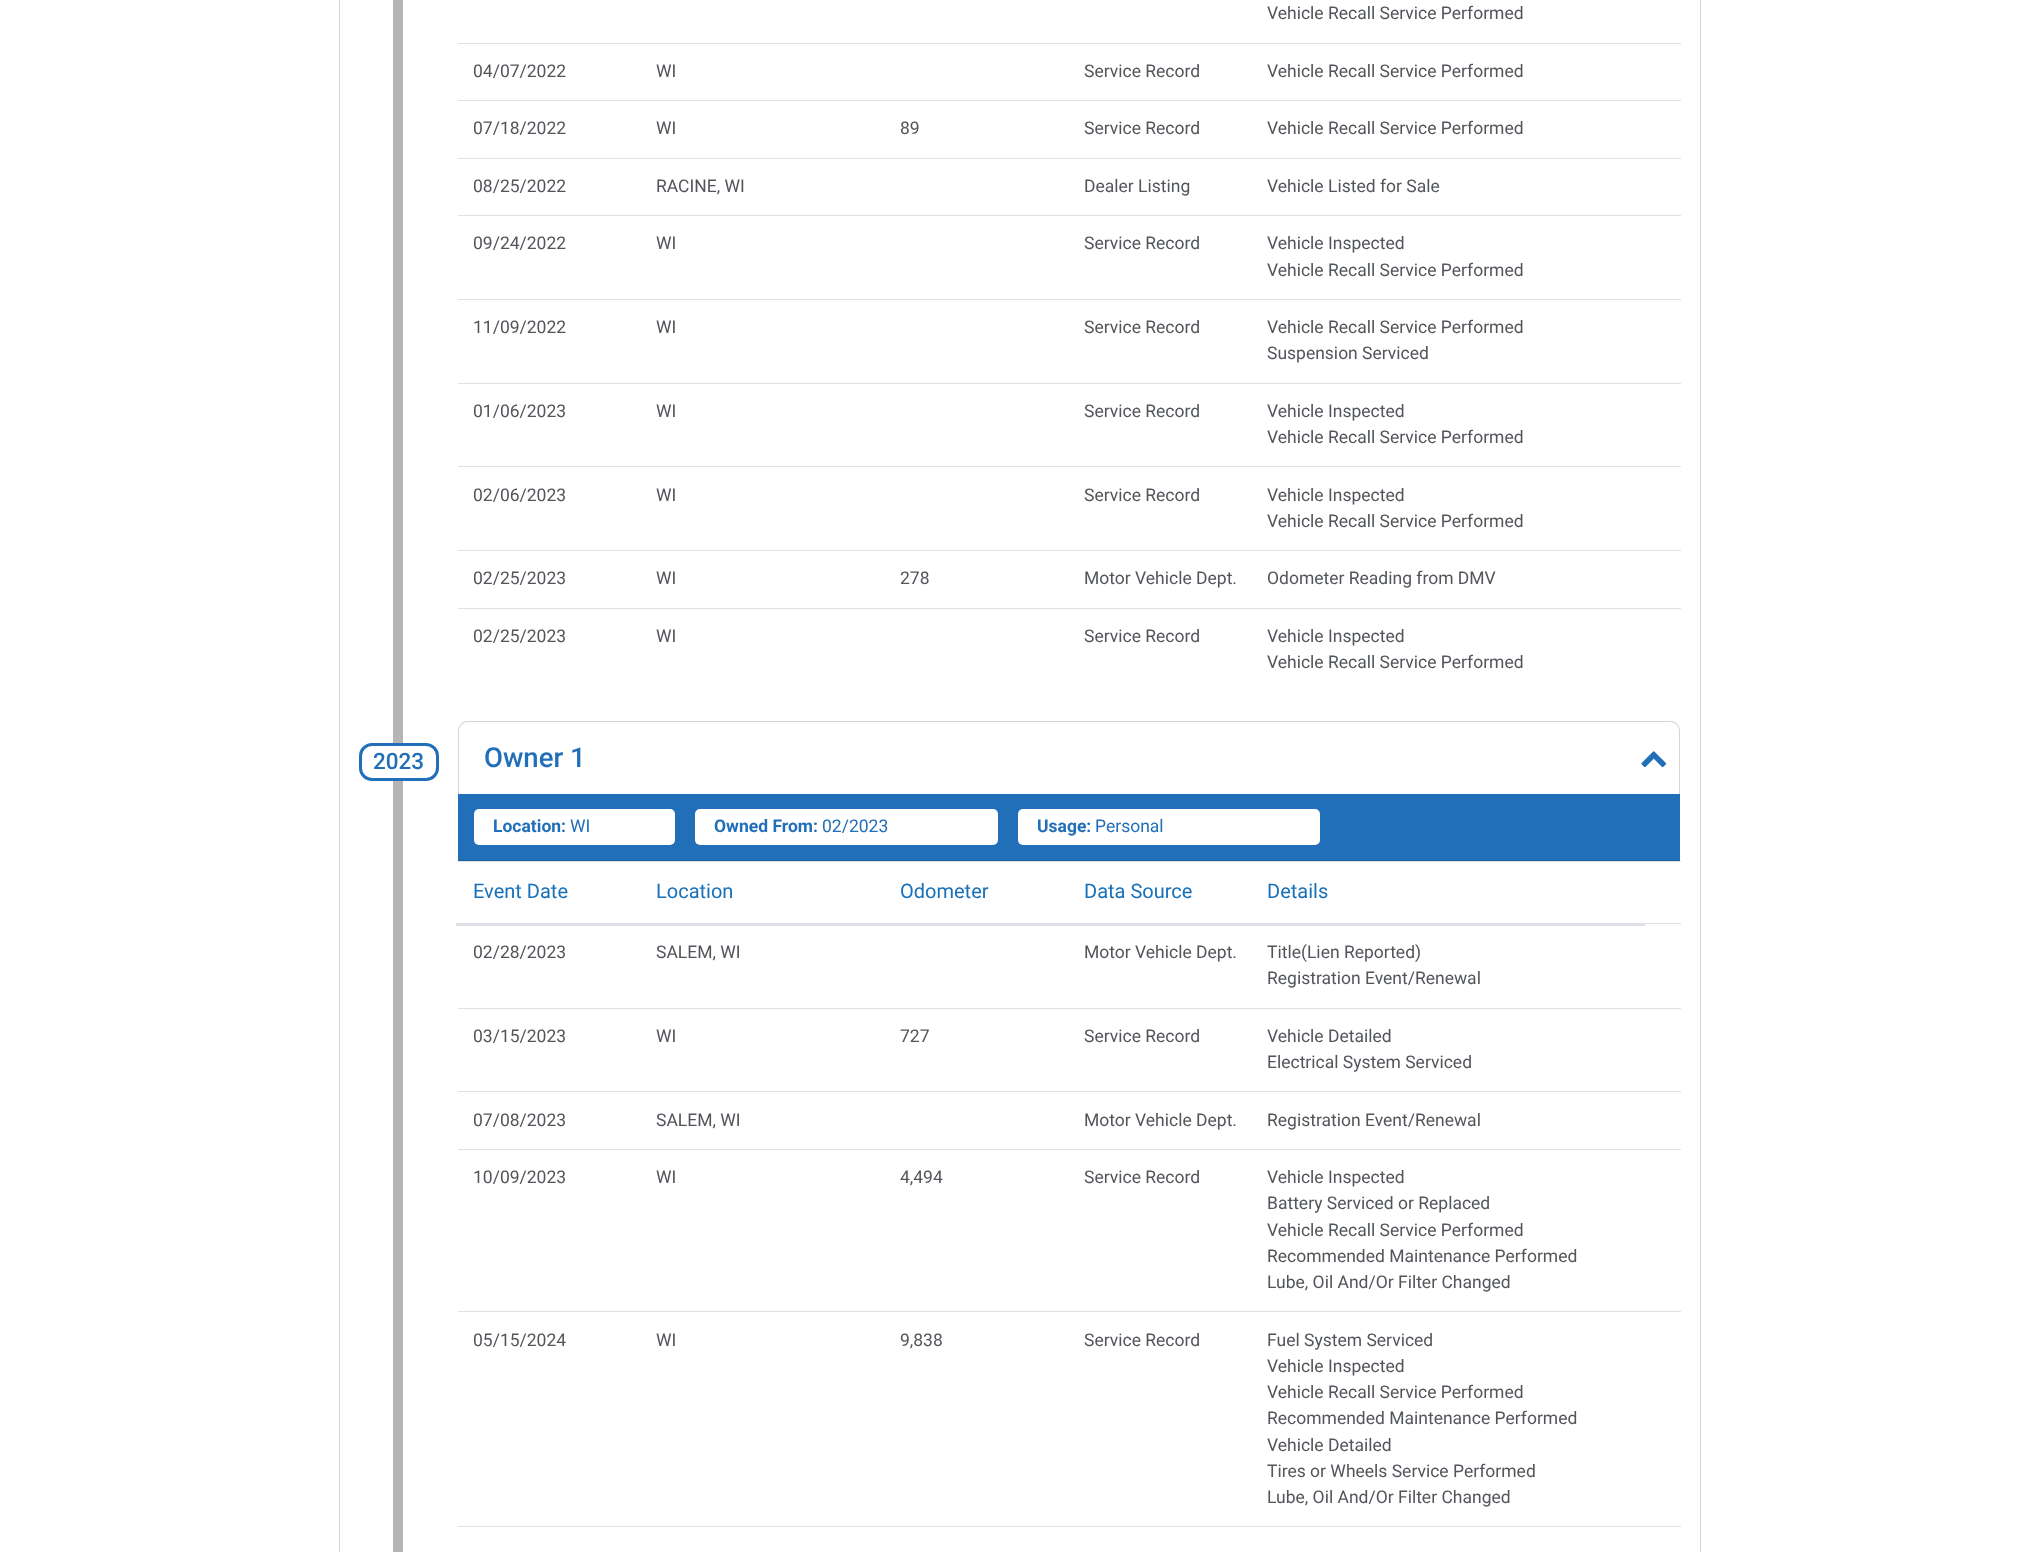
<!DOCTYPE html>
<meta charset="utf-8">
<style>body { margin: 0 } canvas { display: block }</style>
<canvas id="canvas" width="2040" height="1552"></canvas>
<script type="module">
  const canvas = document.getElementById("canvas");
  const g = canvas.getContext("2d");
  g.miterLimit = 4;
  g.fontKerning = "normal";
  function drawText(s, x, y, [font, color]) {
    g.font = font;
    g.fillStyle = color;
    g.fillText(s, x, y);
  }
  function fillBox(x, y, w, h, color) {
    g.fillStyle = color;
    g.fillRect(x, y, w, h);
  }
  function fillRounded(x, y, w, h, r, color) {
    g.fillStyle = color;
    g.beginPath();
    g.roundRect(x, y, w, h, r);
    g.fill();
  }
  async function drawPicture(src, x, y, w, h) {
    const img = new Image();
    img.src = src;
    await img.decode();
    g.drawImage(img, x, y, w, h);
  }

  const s1 = ["17.5px Roboto", "#52555A"];
  const s2 = ["500 22.5px Roboto", "#216FB8"];
  const s3 = ["500 27.5px Roboto", "#216FB8"];
  const s4 = ["bold 17.5px Roboto", "#216FB8"];
  const s5 = ["17.5px Roboto", "#216FB8"];
  const s6 = ["20px Roboto", "#1870B8"];

  fillBox(0, 0, 2040, 1552, "#FFFFFF");
  g.strokeStyle = "#D4D4D4";
  g.strokeRect(339.5, -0.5, 1361, 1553);
  fillBox(393, 0, 10, 743, "#B5B5B5");
  drawText("Vehicle Recall Service Performed", 1267, 19, s1);
  fillBox(458, 43, 1223, 1, "#DEE2E6");
  drawText("04/07/2022", 473, 77, s1);
  drawText("WI", 656, 77, s1);
  drawText("Service Record", 1084, 77, s1);
  drawText("Vehicle Recall Service Performed", 1267, 77, s1);
  fillBox(458, 100, 1223, 1, "#DEE2E6");
  drawText("07/18/2022", 473, 134, s1);
  drawText("WI", 656, 134, s1);
  drawText("89", 900, 134, s1);
  drawText("Service Record", 1084, 134, s1);
  drawText("Vehicle Recall Service Performed", 1267, 134, s1);
  fillBox(458, 158, 1223, 1, "#DEE2E6");
  drawText("08/25/2022", 473, 192, s1);
  drawText("RACINE, WI", 656, 192, s1);
  drawText("Dealer Listing", 1084, 192, s1);
  drawText("Vehicle Listed for Sale", 1267, 192, s1);
  fillBox(458, 215, 1223, 1, "#DEE2E6");
  drawText("09/24/2022", 473, 249, s1);
  drawText("WI", 656, 249, s1);
  drawText("Service Record", 1084, 249, s1);
  drawText("Vehicle Inspected", 1267, 249, s1);
  drawText("Vehicle Recall Service Performed", 1267, 276, s1);
  fillBox(458, 299, 1223, 1, "#DEE2E6");
  drawText("11/09/2022", 473, 333, s1);
  drawText("WI", 656, 333, s1);
  drawText("Service Record", 1084, 333, s1);
  drawText("Vehicle Recall Service Performed", 1267, 333, s1);
  drawText("Suspension Serviced", 1267, 359, s1);
  fillBox(458, 383, 1223, 1, "#DEE2E6");
  drawText("01/06/2023", 473, 417, s1);
  drawText("WI", 656, 417, s1);
  drawText("Service Record", 1084, 417, s1);
  drawText("Vehicle Inspected", 1267, 417, s1);
  drawText("Vehicle Recall Service Performed", 1267, 443, s1);
  fillBox(458, 466, 1223, 1, "#DEE2E6");
  drawText("02/06/2023", 473, 501, s1);
  drawText("WI", 656, 501, s1);
  drawText("Service Record", 1084, 501, s1);
  drawText("Vehicle Inspected", 1267, 501, s1);
  drawText("Vehicle Recall Service Performed", 1267, 527, s1);
  fillBox(458, 550, 1223, 1, "#DEE2E6");
  drawText("02/25/2023", 473, 584, s1);
  drawText("WI", 656, 584, s1);
  drawText("278", 900, 584, s1);
  drawText("Motor Vehicle Dept.", 1084, 584, s1);
  drawText("Odometer Reading from DMV", 1267, 584, s1);
  fillBox(458, 608, 1223, 1, "#DEE2E6");
  drawText("02/25/2023", 473, 642, s1);
  drawText("WI", 656, 642, s1);
  drawText("Service Record", 1084, 642, s1);
  drawText("Vehicle Inspected", 1267, 642, s1);
  drawText("Vehicle Recall Service Performed", 1267, 668, s1);
  g.beginPath();
  g.roundRect(360.5, 744.5, 77, 35, 11.5);
  g.strokeStyle = "#216FB8";
  g.lineWidth = 3;
  g.stroke();
  drawText("2023", 373, 769, s2);
  fillBox(393, 781, 10, 771, "#B5B5B5");
  g.fillStyle = "#D4D4D4";
  g.beginPath();
  g.moveTo(468, 721);
  g.lineTo(1670, 721);
  g.bezierCurveTo(1676, 721, 1680, 726, 1680, 731);
  g.lineTo(1680, 794);
  g.lineTo(458, 794);
  g.lineTo(458, 731);
  g.bezierCurveTo(458, 726, 462, 721, 468, 721);
  g.closePath();
  g.moveTo(468, 722);
  g.lineTo(1670, 722);
  g.bezierCurveTo(1675, 722, 1679, 726, 1679, 731);
  g.lineTo(1679, 794);
  g.lineTo(459, 794);
  g.lineTo(459, 731);
  g.bezierCurveTo(459, 726, 463, 722, 468, 722);
  g.closePath();
  g.fill("evenodd");
  drawText("Owner 1", 484, 767, s3);
  await drawPicture("pic1.png", 1641, 751, 26, 17);
  fillBox(458, 794, 1222, 66, "#216FB8");
  fillBox(458, 860, 1222, 1, "#1D61A1");
  fillRounded(474, 809, 201, 36, 5, "#FFFFFF");
  drawText("Location:", 493, 832, s4);
  drawText("WI", 570, 832, s5);
  fillRounded(695, 809, 303, 36, 5, "#FFFFFF");
  drawText("Owned From:", 714, 832, s4);
  drawText("02/2023", 822, 832, s5);
  fillRounded(1018, 809, 302, 36, 5, "#FFFFFF");
  drawText("Usage:", 1037, 832, s4);
  drawText("Personal", 1095, 832, s5);
  fillBox(458, 861, 1223, 1, "#DEE2E6");
  drawText("Event Date", 473, 898, s6);
  drawText("Location", 656, 898, s6);
  drawText("Odometer", 900, 898, s6);
  drawText("Data Source", 1084, 898, s6);
  fillBox(1644, 923, 37, 1, "#DEE2E6");
  fillBox(456, 923, 1189, 3, "#DEE2E6");
  drawText("Details", 1267, 898, s6);
  drawText("02/28/2023", 473, 958, s1);
  drawText("SALEM, WI", 656, 958, s1);
  drawText("Motor Vehicle Dept.", 1084, 958, s1);
  drawText("Title(Lien Reported)", 1267, 958, s1);
  drawText("Registration Event/Renewal", 1267, 984, s1);
  fillBox(458, 1008, 1223, 1, "#DEE2E6");
  drawText("03/15/2023", 473, 1042, s1);
  drawText("WI", 656, 1042, s1);
  drawText("727", 900, 1042, s1);
  drawText("Service Record", 1084, 1042, s1);
  drawText("Vehicle Detailed", 1267, 1042, s1);
  drawText("Electrical System Serviced", 1267, 1068, s1);
  fillBox(458, 1091, 1223, 1, "#DEE2E6");
  drawText("07/08/2023", 473, 1126, s1);
  drawText("SALEM, WI", 656, 1126, s1);
  drawText("Motor Vehicle Dept.", 1084, 1126, s1);
  drawText("Registration Event/Renewal", 1267, 1126, s1);
  fillBox(458, 1149, 1223, 1, "#DEE2E6");
  drawText("10/09/2023", 473, 1183, s1);
  drawText("WI", 656, 1183, s1);
  drawText("4,494", 900, 1183, s1);
  drawText("Service Record", 1084, 1183, s1);
  drawText("Vehicle Inspected", 1267, 1183, s1);
  drawText("Battery Serviced or Replaced", 1267, 1209, s1);
  drawText("Vehicle Recall Service Performed", 1267, 1236, s1);
  drawText("Recommended Maintenance Performed", 1267, 1262, s1);
  drawText("Lube, Oil And/Or Filter Changed", 1267, 1288, s1);
  fillBox(458, 1311, 1223, 1, "#DEE2E6");
  drawText("05/15/2024", 473, 1346, s1);
  drawText("WI", 656, 1346, s1);
  drawText("9,838", 900, 1346, s1);
  drawText("Service Record", 1084, 1346, s1);
  drawText("Fuel System Serviced", 1267, 1346, s1);
  drawText("Vehicle Inspected", 1267, 1372, s1);
  drawText("Vehicle Recall Service Performed", 1267, 1398, s1);
  drawText("Recommended Maintenance Performed", 1267, 1424, s1);
  drawText("Vehicle Detailed", 1267, 1451, s1);
  drawText("Tires or Wheels Service Performed", 1267, 1477, s1);
  drawText("Lube, Oil And/Or Filter Changed", 1267, 1503, s1);
  fillBox(458, 1526, 1223, 1, "#DEE2E6");
</script>
